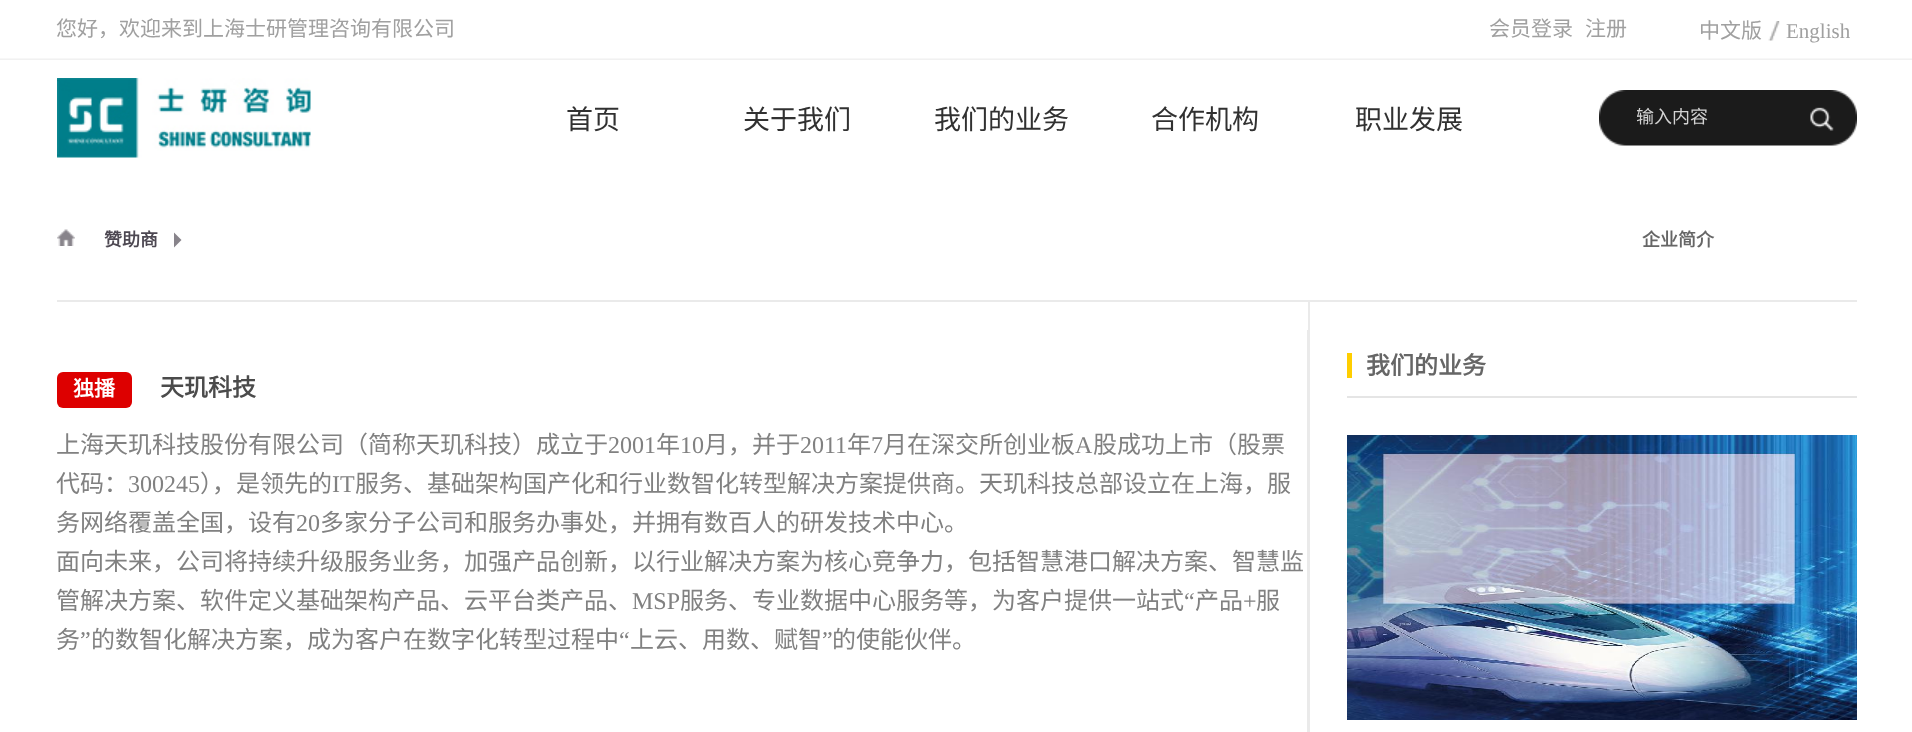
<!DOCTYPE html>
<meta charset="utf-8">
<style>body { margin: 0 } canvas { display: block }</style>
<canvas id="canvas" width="1912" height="732"></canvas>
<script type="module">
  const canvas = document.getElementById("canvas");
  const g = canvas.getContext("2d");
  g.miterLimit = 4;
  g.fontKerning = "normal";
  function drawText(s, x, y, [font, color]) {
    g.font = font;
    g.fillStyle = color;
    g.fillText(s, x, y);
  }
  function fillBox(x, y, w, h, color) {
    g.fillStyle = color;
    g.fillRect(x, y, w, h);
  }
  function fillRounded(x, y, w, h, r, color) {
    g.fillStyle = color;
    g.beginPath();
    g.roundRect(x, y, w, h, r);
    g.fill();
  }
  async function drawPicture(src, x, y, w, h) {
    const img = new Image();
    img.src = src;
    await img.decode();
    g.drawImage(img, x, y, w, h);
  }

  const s1 = ["21px Noto Sans CJK SC", "#A0A0A0"];
  const s2 = ["21px Liberation Serif", "#A0A0A0"];
  const s3 = ["18px Noto Sans CJK SC", "#D2D2D2"];
  const s4 = ["27px Noto Sans CJK SC", "#313131"];
  const s5 = ["bold 18px Noto Sans CJK SC", "#4D4852"];
  const s6 = ["bold 21px Noto Sans CJK SC", "#FFFFFF"];
  const s7 = ["bold 24px Noto Sans CJK SC", "#4B4B4B"];
  const s8 = ["24px Noto Sans CJK SC", "#818181"];
  const s9 = ["24px Liberation Serif", "#818181"];
  const s10 = ["bold 18px Noto Sans CJK SC", "#666666"];
  const s11 = ["bold 24px Noto Sans CJK SC", "#666666"];

  fillBox(0, 0, 1912, 732, "#FFFFFF");
  await drawPicture("pic1.png", 0, 58, 1912, 2);
  drawText("您好，欢迎来到上海士研管理咨询有限公司", 56, 36, s1);
  drawText("会员登录", 1489, 36, s1);
  drawText("注册", 1585, 36, s1);
  await drawPicture("pic2.png", 1768, 21, 12, 20);
  drawText("中文版", 1699, 38, s1);
  drawText("English", 1786, 38, s2);
  await drawPicture("pic3.png", 57, 78, 254, 80);
  await drawPicture("pic4.png", 1599, 90, 258, 56);
  g.save();
  g.beginPath();
  g.rect(1637, 90, 150, 56);
  g.clip();
  drawText("输入内容", 1636, 123, s3);
  g.restore();
  await drawPicture("pic5.png", 1810, 107, 24, 24);
  drawText("首页", 566, 129, s4);
  drawText("关于我们", 743, 129, s4);
  drawText("我们的业务", 934, 129, s4);
  drawText("合作机构", 1151, 129, s4);
  drawText("职业发展", 1355, 129, s4);
  fillBox(1308, 300, 2, 432, "#EAEAEA");
  fillBox(57, 300, 1251, 2, "#EAEAEA");
  await drawPicture("pic6.png", 57, 229, 18, 17);
  drawText("赞助商", 104, 246, s5);
  g.fillStyle = "#88848B";
  g.beginPath();
  g.moveTo(174, 247.5);
  g.lineTo(174, 232.5);
  g.lineTo(181.5, 240);
  g.closePath();
  g.fill();
  fillRounded(57, 372, 75, 36, 6, "#DD0000");
  drawText("独播", 73, 396, s6);
  drawText("天玑科技", 160, 396, s7);
  fillBox(1307, 330, 1, 402, "#EAEAEA");
  drawText("上海天玑科技股份有限公司（简称天玑科技）成立于", 56, 453, s8);
  drawText("2001", 608, 453, s9);
  drawText("年", 656, 453, s8);
  drawText("10", 680, 453, s9);
  drawText("月，并于", 704, 453, s8);
  drawText("2011", 800, 453, s9);
  drawText("年", 847, 453, s8);
  drawText("7", 871, 453, s9);
  drawText("月在深交所创业板", 883, 453, s8);
  drawText("A", 1075, 453, s9);
  drawText("股成功上市（股票", 1093, 453, s8);
  drawText("代码：", 56, 492, s8);
  drawText("300245", 128, 492, s9);
  drawText("），是领先的", 200, 492, s8);
  drawText("IT", 332, 492, s9);
  drawText("服务、基础架构国产化和行业数智化转型解决方案提供商。天玑科技总部设立在上海，服", 355, 492, s8);
  drawText("务网络覆盖全国，设有", 56, 531, s8);
  drawText("20", 296, 531, s9);
  drawText("多家分子公司和服务办事处，并拥有数百人的研发技术中心。", 320, 531, s8);
  drawText("面向未来，公司将持续升级服务业务，加强产品创新，以行业解决方案为核心竞争力，包括智慧港口解决方案、智慧监", 56, 570, s8);
  drawText("管解决方案、软件定义基础架构产品、云平台类产品、", 56, 609, s8);
  drawText("MSP", 632, 609, s9);
  drawText("服务、专业数据中心服务等，为客户提供一站式", 680, 609, s8);
  drawText("“", 1184, 609, s9);
  drawText("产品", 1195, 609, s8);
  drawText("+", 1243, 609, s9);
  drawText("服", 1256, 609, s8);
  drawText("务", 56, 648, s8);
  drawText("”", 80, 648, s9);
  drawText("的数智化解决方案，成为客户在数字化转型过程中", 91, 648, s8);
  drawText("“", 619, 648, s9);
  drawText("上云、用数、赋智", 630, 648, s8);
  drawText("”", 822, 648, s9);
  drawText("的使能伙伴。", 832, 648, s8);
  fillBox(1310, 300, 547, 2, "#EAEAEA");
  drawText("企业简介", 1642, 246, s10);
  fillBox(1347, 396, 510, 2, "#E5E5E5");
  drawText("我们的业务", 1366, 374, s11);
  fillBox(1347, 353, 5, 25, "#FFCE00");
  await drawPicture("pic7.png", 1347, 435, 510, 285);
</script>
